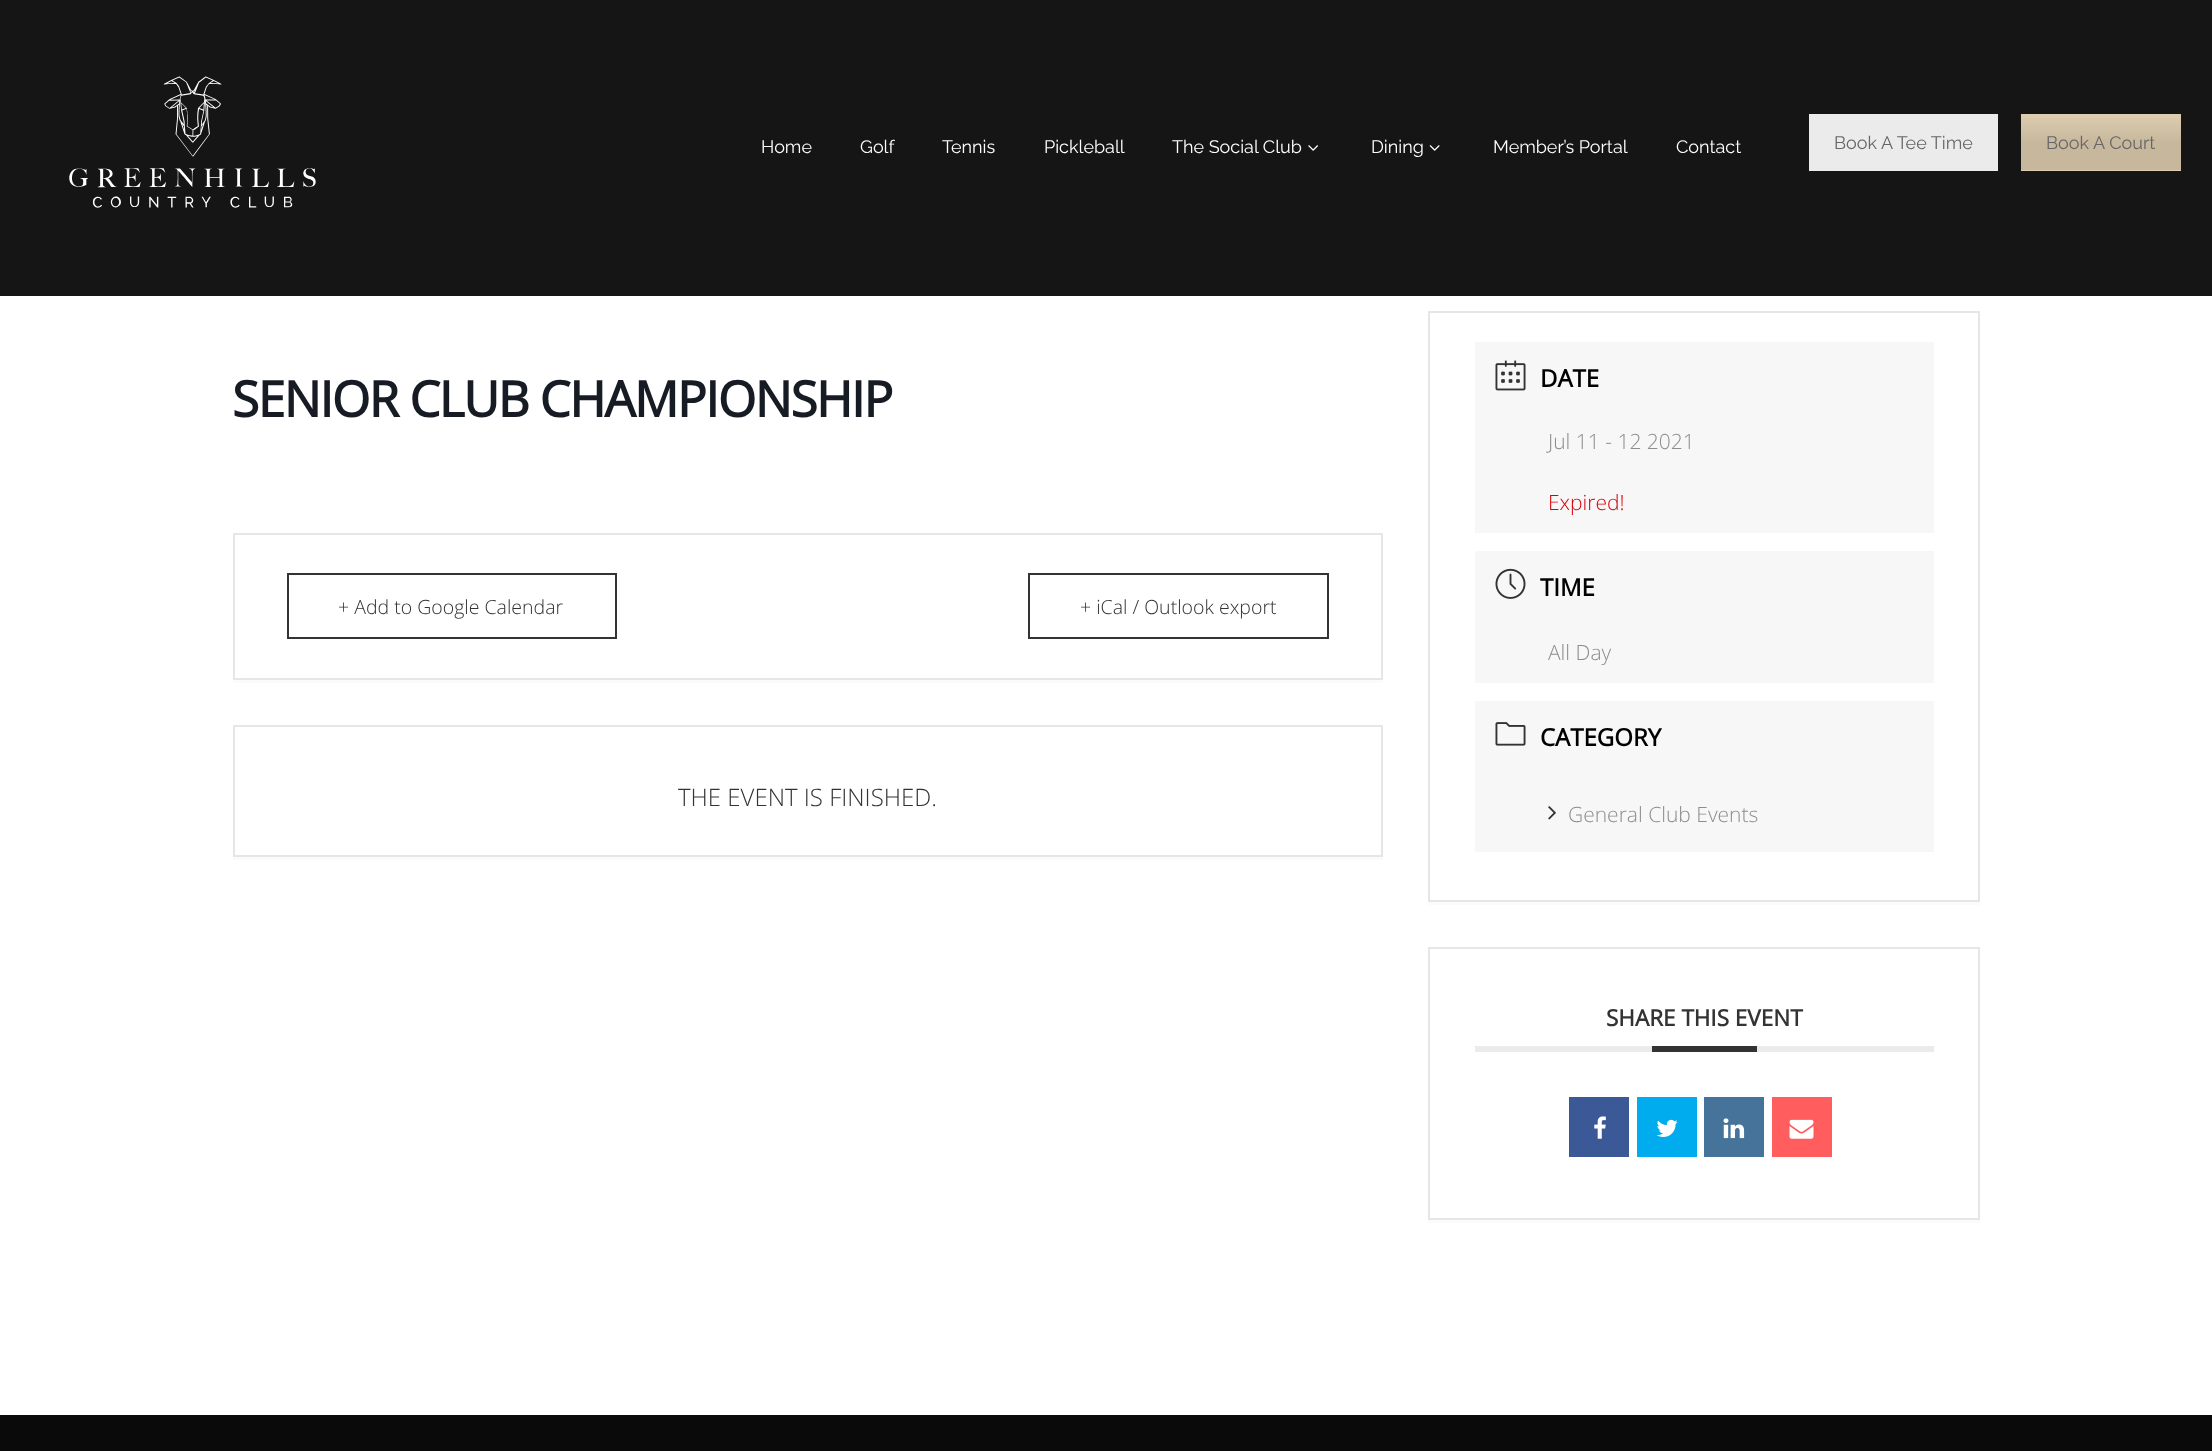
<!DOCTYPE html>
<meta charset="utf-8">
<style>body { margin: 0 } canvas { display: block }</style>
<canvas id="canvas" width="2212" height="1451"></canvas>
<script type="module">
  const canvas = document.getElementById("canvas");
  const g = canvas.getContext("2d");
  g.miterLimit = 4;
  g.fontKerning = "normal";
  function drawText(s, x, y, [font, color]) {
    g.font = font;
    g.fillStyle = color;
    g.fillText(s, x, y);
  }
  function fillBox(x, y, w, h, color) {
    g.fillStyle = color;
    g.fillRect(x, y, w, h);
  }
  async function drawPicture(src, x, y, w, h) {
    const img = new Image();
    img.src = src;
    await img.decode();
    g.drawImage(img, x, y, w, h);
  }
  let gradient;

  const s1 = ["18px Raleway", "#FFFFFF"];
  const s2 = ["18px Raleway", "#666666"];
  const s3 = ["bold 49.5px Open Sans", "#171C24"];
  const s4 = ["300 19.5px Open Sans", "#333333"];
  const s5 = ["300 24px Open Sans", "#333333"];
  const s6 = ["bold 24px Open Sans", "#000000"];
  const s7 = ["300 21px Open Sans", "#8D8D8D"];
  const s8 = ["300 21px Open Sans", "#D8000C"];
  const s9 = ["bold 22.5px Open Sans", "#333333"];

  fillBox(0, 0, 2212, 1451, "#FFFFFF");
  fillBox(0, 0, 2212, 296, "#151515");
  await drawPicture("pic1.png", 69, 76, 247, 132);
  drawText("Home", 761, 153, s1);
  drawText("Golf", 860, 153, s1);
  drawText("Tennis", 942, 153, s1);
  drawText("Pickleball", 1044, 153, s1);
  drawText("The Social Club", 1172, 153, s1);
  await drawPicture("pic2.png", 1308, 145, 10, 6);
  drawText("Dining", 1371, 153, s1);
  await drawPicture("pic3.png", 1429, 145, 11, 6);
  drawText("Member’s Portal", 1493, 153, s1);
  drawText("Contact", 1676, 153, s1);
  fillBox(1809, 114, 189, 57, "#EBEBEB");
  drawText("Book A Tee Time", 1834, 149, s2);
  fillBox(2021, 114, 160, 57, "#DDCCAE");
  gradient = g.createLinearGradient(2180, 115, 2180, 170);
  gradient.addColorStop(0, "#DDCCAE");
  gradient.addColorStop(0.5, "#C7B89D");
  gradient.addColorStop(1, "#C7B89D");
  g.fillStyle = gradient;
  g.fillRect(2021, 118, 160, 52);
  drawText("Book A Court", 2046, 149, s2);
  g.letterSpacing = "-1.5px";
  drawText("SENIOR CLUB CHAMPIONSHIP", 232, 417, s3);
  fillBox(233, 680, 1150, 3, "#FBFBFB");
  g.strokeStyle = "#E6E6E6";
  g.lineWidth = 2;
  g.strokeRect(234, 534, 1148, 145);
  g.strokeStyle = "#333333";
  g.strokeRect(288, 574, 328, 64);
  g.letterSpacing = "0px";
  drawText("+ Add to Google Calendar", 338, 614, s4);
  g.strokeRect(1029, 574, 299, 64);
  drawText("+ iCal / Outlook export", 1080, 614, s4);
  fillBox(233, 857, 1150, 3, "#FBFBFB");
  g.strokeStyle = "#E6E6E6";
  g.strokeRect(234, 726, 1148, 130);
  drawText("THE EVENT IS FINISHED.", 678, 806, s5);
  fillBox(1428, 902, 552, 3, "#FBFBFB");
  g.strokeRect(1429, 312, 550, 589);
  fillBox(1475, 342, 459, 191, "#F7F7F7");
  await drawPicture("pic4.png", 1495, 360, 31, 31);
  drawText("DATE", 1540, 387, s6);
  drawText("Jul 11 - 12 2021", 1548, 449, s7);
  drawText("Expired!", 1548, 510, s8);
  fillBox(1475, 551, 459, 132, "#F7F7F7");
  await drawPicture("pic5.png", 1495, 568, 31, 31);
  drawText("TIME", 1540, 596, s6);
  drawText("All Day", 1548, 660, s7);
  fillBox(1475, 701, 459, 151, "#F7F7F7");
  await drawPicture("pic6.png", 1495, 722, 31, 24);
  drawText("CATEGORY", 1540, 746, s6);
  await drawPicture("pic7.png", 1548, 806, 8, 14);
  drawText("General Club Events", 1568, 822, s7);
  fillBox(1428, 1220, 552, 3, "#FBFBFB");
  g.strokeRect(1429, 948, 550, 271);
  fillBox(1475, 1046, 459, 6, "#EBEBEB");
  drawText("SHARE THIS EVENT", 1606, 1026, s9);
  fillBox(1652, 1046, 105, 6, "#333333");
  fillBox(1569, 1097, 60, 60, "#3B5996");
  await drawPicture("pic8.png", 1594, 1116, 12, 23);
  fillBox(1637, 1097, 60, 60, "#00ACEE");
  await drawPicture("pic9.png", 1656, 1119, 22, 18);
  fillBox(1704, 1097, 60, 60, "#457399");
  await drawPicture("pic10.png", 1723, 1118, 22, 21);
  fillBox(1772, 1097, 60, 60, "#FF5D5E");
  await drawPicture("pic11.png", 1789, 1119, 25, 20);
  fillBox(0, 1415, 2212, 36, "#0A0A0A");
</script>
